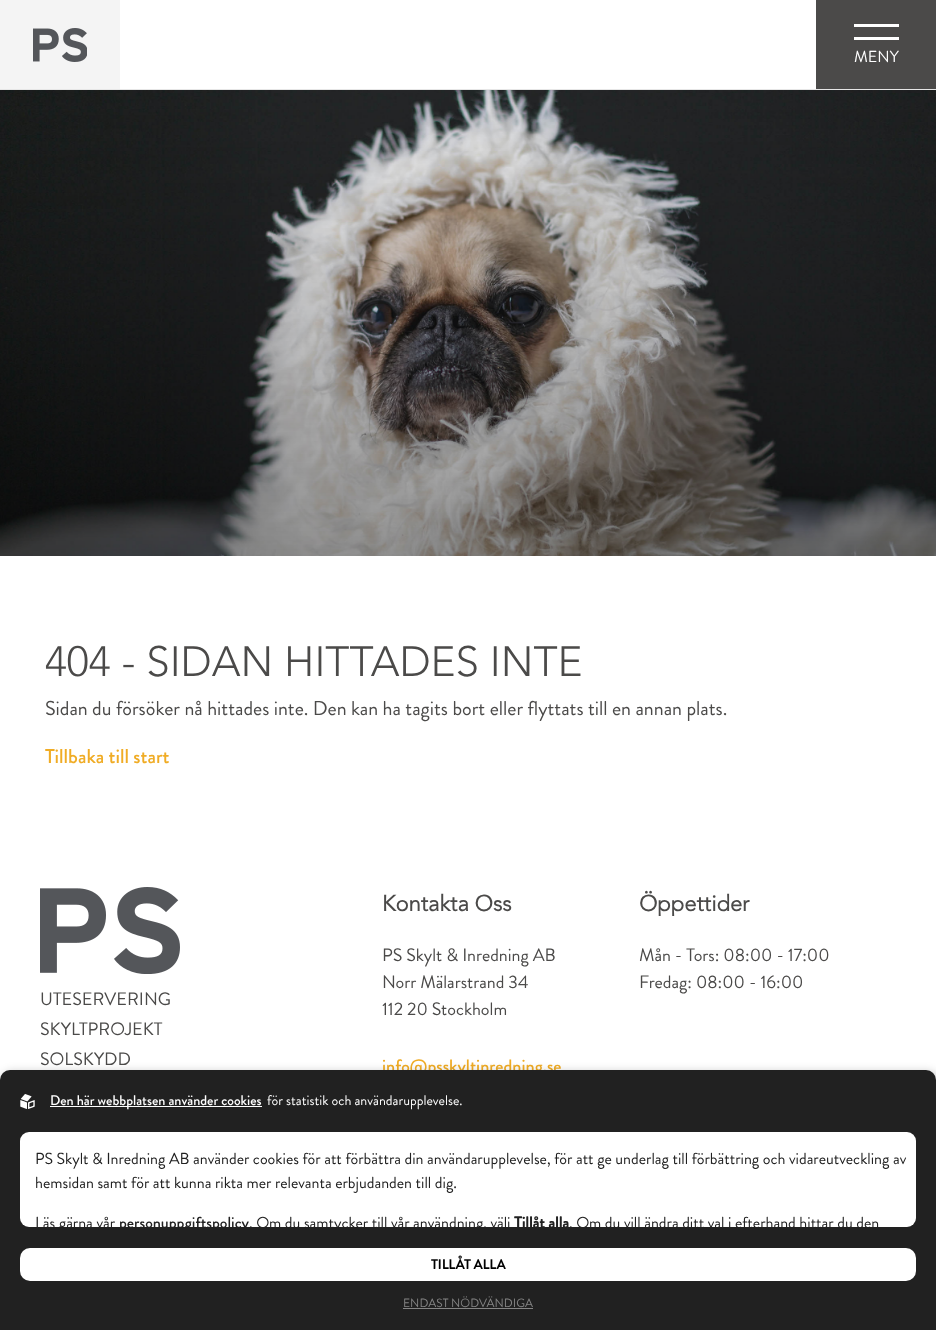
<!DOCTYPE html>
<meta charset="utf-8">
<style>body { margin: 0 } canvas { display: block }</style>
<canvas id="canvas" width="936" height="1330"></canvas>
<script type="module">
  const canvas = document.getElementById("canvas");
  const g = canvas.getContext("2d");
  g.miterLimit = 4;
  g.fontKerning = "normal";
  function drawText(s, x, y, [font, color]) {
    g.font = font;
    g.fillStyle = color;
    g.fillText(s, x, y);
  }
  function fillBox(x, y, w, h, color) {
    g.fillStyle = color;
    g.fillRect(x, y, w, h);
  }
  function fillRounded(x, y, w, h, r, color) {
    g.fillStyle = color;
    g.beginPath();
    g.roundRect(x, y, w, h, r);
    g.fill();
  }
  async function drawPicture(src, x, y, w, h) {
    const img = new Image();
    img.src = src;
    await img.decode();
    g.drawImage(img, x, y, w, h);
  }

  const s1 = ["16px Brandon Grotesque", "#FFFFFF"];
  const s2 = ["300 42px 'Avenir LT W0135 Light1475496'", "#4B4A49"];
  const s3 = ["20px Brandon Grotesque", "#4B4A49"];
  const s4 = ["500 20px Brandon Grotesque", "#F0AC25"];
  const s5 = ["18px Brandon Grotesque", "#4B4A49"];
  const s6 = ["bold 22px 'Avenir LT W0135 Light1475496'", "#4B4A49"];
  const s7 = ["500 18px Brandon Grotesque", "#F0AC25"];
  const s8 = ["500 14px Brandon Grotesque", "#FFFFFF"];
  const s9 = ["14px Brandon Grotesque", "#FFFFFF"];
  const s10 = ["16px Brandon Grotesque", "#212121"];
  const s11 = ["500 16px Brandon Grotesque", "#212121"];
  const s12 = ["bold 16px Brandon Grotesque", "#212121"];
  const s13 = ["bold 13.5px Brandon Grotesque", "#000000"];
  const s14 = ["12px Brandon Grotesque", "#858585"];

  fillBox(0, 0, 936, 1330, "#FFFFFF");
  fillBox(0, 89, 936, 1, "#E6E6E6");
  fillBox(0, 0, 120, 89, "#F4F4F4");
  await drawPicture("pic1.png", 33, 28, 54, 34);
  fillBox(816, 0, 120, 89, "#4B4A49");
  fillBox(854, 24, 45, 3, "#FFFFFF");
  fillBox(854, 37, 45, 3, "#FFFFFF");
  drawText("MENY", 854, 62, s1);
  await drawPicture("pic2.png", 0, 90, 936, 466);
  drawText("404 - SIDAN HITTADES INTE", 45, 676, s2);
  drawText("Sidan du försöker nå hittades inte. Den kan ha tagits bort eller flyttats till en annan plats.", 45, 715, s3);
  drawText("Tillbaka till start", 45, 763, s4);
  await drawPicture("pic3.png", 40, 887, 140, 87);
  drawText("UTESERVERING", 40, 1005, s5);
  drawText("SKYLTPROJEKT", 40, 1035, s5);
  drawText("SOLSKYDD", 40, 1065, s5);
  drawText("Kontakta Oss", 382, 911, s6);
  drawText("PS Skylt & Inredning AB", 382, 961, s5);
  drawText("Norr Mälarstrand 34", 382, 988, s5);
  drawText("112 20 Stockholm", 382, 1015, s5);
  drawText("info@psskyltinredning.se", 382, 1072, s7);
  drawText("Öppettider", 639, 911, s6);
  drawText("Mån - Tors: 08:00 - 17:00", 639, 961, s5);
  drawText("Fredag: 08:00 - 16:00", 639, 988, s5);
  g.fillStyle = "rgba(0, 0, 0, 0.25)";
  g.filter = "blur(5px)";
  g.beginPath();
  g.roundRect(2, 1072, 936, 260, 10);
  g.fill();
  g.filter = "none";
  g.fillStyle = "#212121";
  g.beginPath();
  g.roundRect(0, 1070, 936, 260, [10, 10, 0, 0]);
  g.fill();
  await drawPicture("pic4.png", 20, 1094, 15, 15);
  fillBox(50, 1106, 212, 1, "#FFFFFF");
  drawText("Den här webbplatsen använder cookies", 50, 1105, s8);
  drawText("för statistik och användarupplevelse.", 267, 1105, s9);
  fillRounded(20, 1132, 896, 95, 9, "#FFFFFF");
  drawText("PS Skylt & Inredning AB använder cookies för att förbättra din användarupplevelse, för att ge underlag till förbättring och vidareutveckling av", 35, 1164, s10);
  drawText("hemsidan samt för att kunna rikta mer relevanta erbjudanden till dig.", 35, 1188, s10);
  g.save();
  g.beginPath();
  g.roundRect(20, 1132, 896, 95, 9);
  g.clip();
  drawText("Läs gärna vår", 35, 1228, s10);
  drawText("personuppgiftspolicy", 119, 1228, s11);
  drawText(". Om du samtycker till vår användning, välj", 249, 1228, s10);
  drawText("Tillåt alla", 514, 1228, s12);
  drawText(". Om du vill ändra ditt val i efterhand hittar du den", 569, 1228, s10);
  g.restore();
  fillRounded(20, 1248, 896, 33, 10, "#FFFFFF");
  drawText("TILLÅT ALLA", 431, 1269, s13);
  drawText("ENDAST NÖDVÄNDIGA", 403, 1307, s14);
  fillBox(403, 1308, 130, 1, "#858585");
</script>
